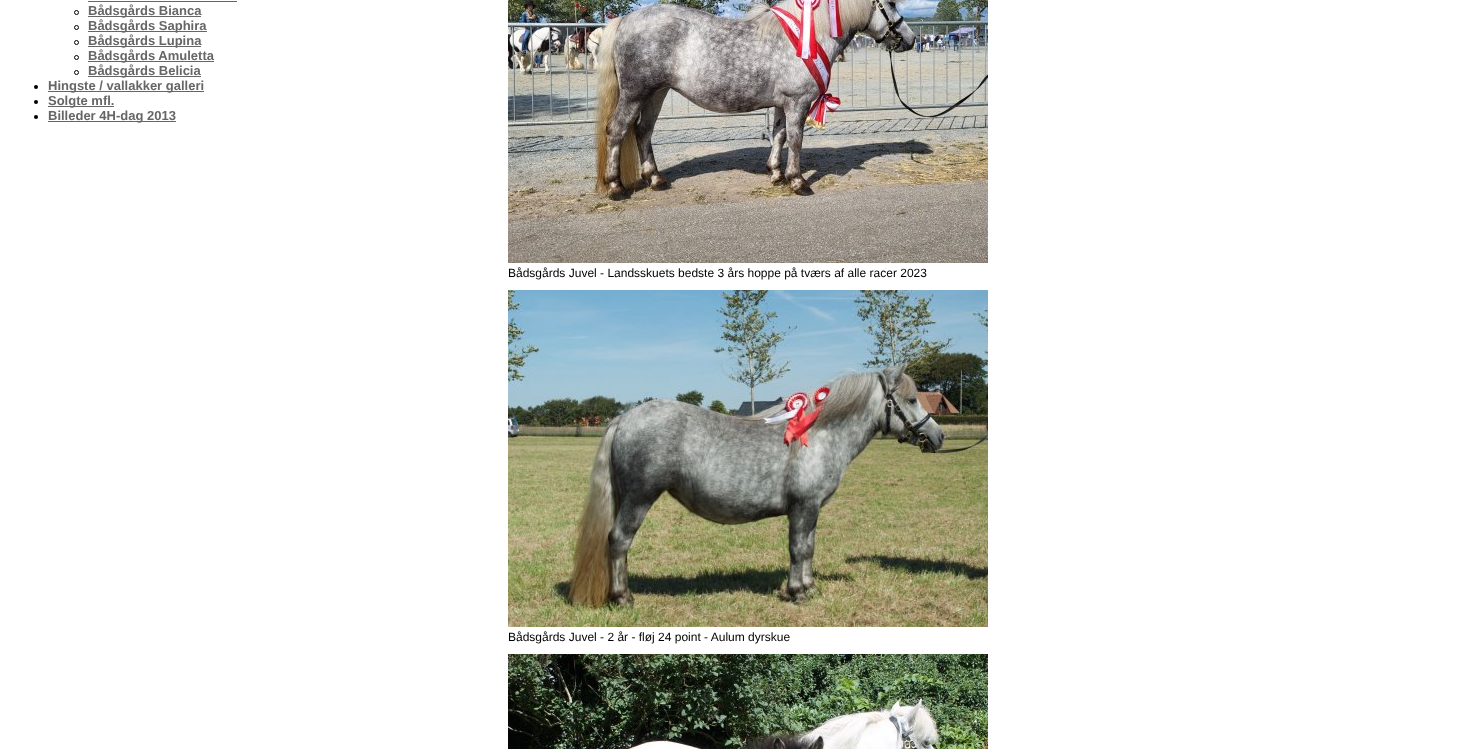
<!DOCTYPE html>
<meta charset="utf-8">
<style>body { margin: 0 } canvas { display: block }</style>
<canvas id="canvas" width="1458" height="749"></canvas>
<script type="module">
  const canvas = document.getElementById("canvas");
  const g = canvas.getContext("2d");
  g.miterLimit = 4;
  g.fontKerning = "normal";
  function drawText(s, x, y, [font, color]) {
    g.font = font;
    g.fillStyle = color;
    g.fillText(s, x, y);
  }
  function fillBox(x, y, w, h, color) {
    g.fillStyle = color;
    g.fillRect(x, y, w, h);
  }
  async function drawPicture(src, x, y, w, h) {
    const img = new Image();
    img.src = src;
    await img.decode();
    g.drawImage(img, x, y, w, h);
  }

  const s1 = ["bold 13px Liberation Sans", "#666666"];
  const s2 = ["12px Liberation Sans", "#000000"];

  fillBox(0, 0, 1458, 749, "#FFFFFF");
  fillBox(88, 1, 149, 1, "#666666");
  g.beginPath();
  g.arc(76.5, 12.5, 2, 0, Math.PI * 2);
  g.strokeStyle = "#000000";
  g.stroke();
  fillBox(88, 16, 113, 1, "#666666");
  drawText("Bådsgårds Bianca", 88, 15, s1);
  g.beginPath();
  g.arc(76.5, 27.5, 2, 0, Math.PI * 2);
  g.stroke();
  fillBox(88, 31, 119, 1, "#666666");
  drawText("Bådsgårds Saphira", 88, 30, s1);
  g.beginPath();
  g.arc(76.5, 42.5, 2, 0, Math.PI * 2);
  g.stroke();
  fillBox(88, 46, 113, 1, "#666666");
  drawText("Bådsgårds Lupina", 88, 45, s1);
  g.beginPath();
  g.arc(76.5, 57.5, 2, 0, Math.PI * 2);
  g.stroke();
  fillBox(88, 61, 126, 1, "#666666");
  drawText("Bådsgårds Amuletta", 88, 60, s1);
  g.beginPath();
  g.arc(76.5, 72.5, 2, 0, Math.PI * 2);
  g.stroke();
  fillBox(88, 76, 113, 1, "#666666");
  drawText("Bådsgårds Belicia", 88, 75, s1);
  g.fillStyle = "#000000";
  g.beginPath();
  g.arc(36, 87, 2, 0, Math.PI * 2);
  g.fill();
  fillBox(48, 91, 156, 1, "#666666");
  drawText("Hingste / vallakker galleri", 48, 90, s1);
  g.fillStyle = "#000000";
  g.beginPath();
  g.arc(36, 102, 2, 0, Math.PI * 2);
  g.fill();
  fillBox(48, 106, 66, 1, "#666666");
  drawText("Solgte mfl.", 48, 105, s1);
  g.fillStyle = "#000000";
  g.beginPath();
  g.arc(36, 117, 2, 0, Math.PI * 2);
  g.fill();
  fillBox(48, 121, 128, 1, "#666666");
  drawText("Billeder 4H-dag 2013", 48, 120, s1);
  await drawPicture("pic1.png", 508, 0, 480, 263);
  drawText("Bådsgårds Juvel - Landsskuets bedste 3 års hoppe på tværs af alle racer 2023", 508, 277, s2);
  await drawPicture("pic2.png", 508, 290, 480, 337);
  drawText("Bådsgårds Juvel - 2 år - fløj 24 point - Aulum dyrskue", 508, 641, s2);
  await drawPicture("pic3.png", 508, 654, 480, 95);
</script>
